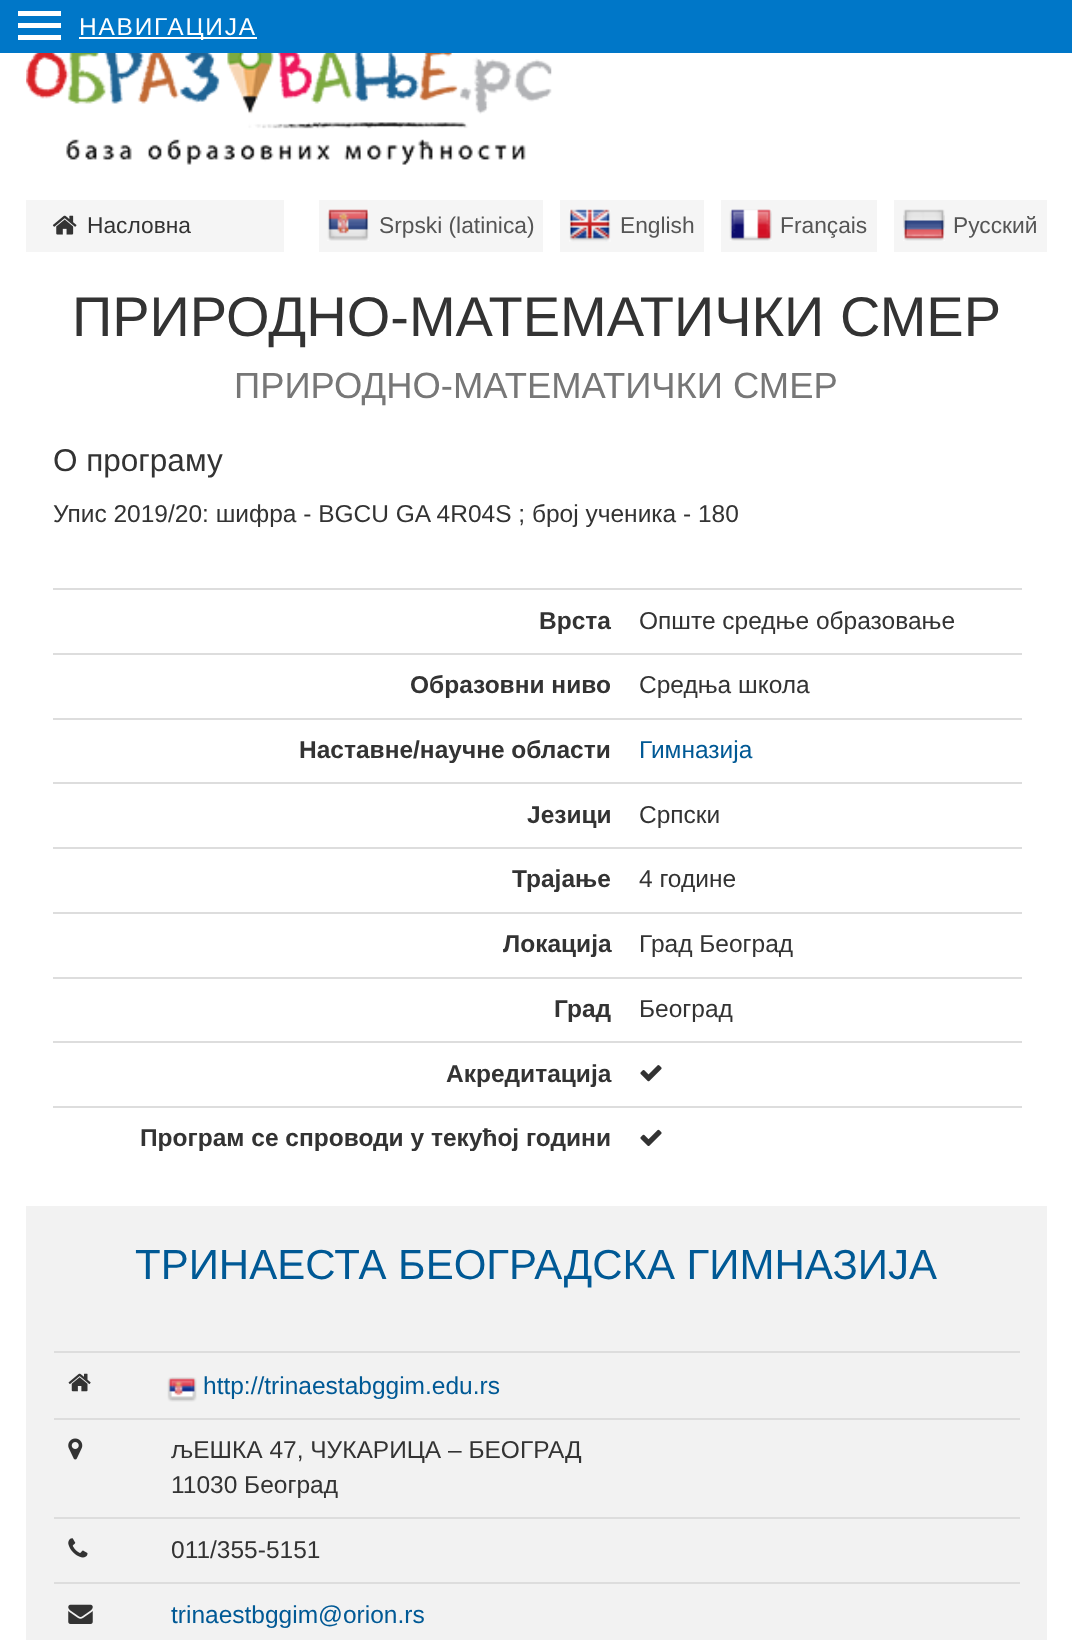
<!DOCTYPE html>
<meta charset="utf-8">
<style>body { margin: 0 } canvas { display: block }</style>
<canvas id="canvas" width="1072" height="1640"></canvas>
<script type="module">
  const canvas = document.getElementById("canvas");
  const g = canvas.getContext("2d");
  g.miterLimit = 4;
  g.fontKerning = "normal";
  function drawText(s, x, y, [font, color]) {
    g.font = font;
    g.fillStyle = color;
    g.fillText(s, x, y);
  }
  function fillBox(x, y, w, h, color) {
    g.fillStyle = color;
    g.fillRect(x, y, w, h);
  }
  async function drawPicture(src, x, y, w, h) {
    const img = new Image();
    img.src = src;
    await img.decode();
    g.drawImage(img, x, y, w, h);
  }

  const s1 = ["24.5px Liberation Sans", "#FFFFFF"];
  const s2 = ["22.75px Liberation Sans", "#333333"];
  const s3 = ["22.75px Liberation Sans", "#555555"];
  const s4 = ["56px Liberation Sans", "#333333"];
  const s5 = ["36.4px Liberation Sans", "#777777"];
  const s6 = ["31.5px Liberation Sans", "#333333"];
  const s7 = ["24.5px Liberation Sans", "#333333"];
  const s8 = ["bold 24.5px Liberation Sans", "#333333"];
  const s9 = ["24.5px Liberation Sans", "#005995"];
  const s10 = ["42px Liberation Sans", "#005995"];

  fillBox(0, 0, 1072, 1640, "#FFFFFF");
  fillBox(0, 0, 1072, 53, "#0077C8");
  fillBox(18, 11, 43, 5, "#FFFFFF");
  fillBox(18, 23, 43, 5, "#FFFFFF");
  fillBox(79, 37, 178, 2, "#FFFFFF");
  g.letterSpacing = "1.75px";
  drawText("НАВИГАЦИЈА", 79, 35, s1);
  fillBox(18, 35, 43, 5, "#FFFFFF");
  await drawPicture("pic1.png", 26, 53, 526, 112);
  fillBox(26, 200, 258, 52, "#F5F5F5");
  await drawPicture("pic2.png", 52, 215, 25, 20);
  g.letterSpacing = "0px";
  drawText("Насловна", 87, 233, s2);
  fillBox(319, 200, 224, 52, "#F5F5F5");
  await drawPicture("pic3.png", 327, 209, 42, 32);
  drawText("Srpski (latinica)", 379, 233, s3);
  fillBox(560, 200, 144, 52, "#F5F5F5");
  await drawPicture("pic4.png", 569, 209, 42, 33);
  drawText("English", 620, 233, s3);
  fillBox(721, 200, 156, 52, "#F5F5F5");
  await drawPicture("pic5.png", 729, 209, 43, 32);
  drawText("Français", 780, 233, s3);
  fillBox(894, 200, 153, 52, "#F5F5F5");
  await drawPicture("pic6.png", 903, 209, 42, 32);
  drawText("Русский", 953, 233, s3);
  drawText("ПРИРОДНО-МАТЕМАТИЧКИ СМЕР", 72, 336, s4);
  drawText("ПРИРОДНО-МАТЕМАТИЧКИ СМЕР", 234, 398, s5);
  drawText("О програму", 53, 471, s6);
  drawText("Упис 2019/20: шифра - BGCU GA 4R04S ; број ученика - 180", 53, 522, s7);
  drawText("Врста", 539, 629, s8);
  fillBox(53, 588, 969, 2, "#DDDDDD");
  drawText("Опште средње образовање", 639, 629, s7);
  drawText("Образовни ниво", 410, 693, s8);
  fillBox(53, 653, 969, 2, "#DDDDDD");
  drawText("Средња школа", 639, 693, s7);
  drawText("Наставне/научне области", 299, 758, s8);
  fillBox(53, 718, 969, 2, "#DDDDDD");
  drawText("Гимназија", 639, 758, s9);
  drawText("Језици", 527, 823, s8);
  fillBox(53, 782, 969, 2, "#DDDDDD");
  drawText("Српски", 639, 823, s7);
  drawText("Трајање", 512, 887, s8);
  fillBox(53, 847, 969, 2, "#DDDDDD");
  drawText("4 године", 639, 887, s7);
  drawText("Локација", 503, 952, s8);
  fillBox(53, 912, 969, 2, "#DDDDDD");
  drawText("Град Београд", 639, 952, s7);
  drawText("Град", 554, 1017, s8);
  fillBox(53, 977, 969, 2, "#DDDDDD");
  drawText("Београд", 639, 1017, s7);
  fillBox(53, 1041, 969, 2, "#DDDDDD");
  await drawPicture("pic7.png", 640, 1065, 22, 17);
  drawText("Акредитација", 446, 1082, s8);
  fillBox(53, 1106, 969, 2, "#DDDDDD");
  await drawPicture("pic8.png", 640, 1129, 22, 17);
  drawText("Програм се спроводи у текућој години", 140, 1146, s8);
  fillBox(26, 1206, 1021, 434, "#F2F2F2");
  drawText("ТРИНАЕСТА БЕОГРАДСКА ГИМНАЗИЈА", 135, 1279, s10);
  await drawPicture("pic9.png", 68, 1373, 23, 19);
  fillBox(54, 1351, 966, 2, "#DDDDDD");
  await drawPicture("pic10.png", 167, 1377, 30, 25);
  drawText("http://trinaestabggim.edu.rs", 203, 1394, s9);
  await drawPicture("pic11.png", 68, 1438, 15, 22);
  fillBox(54, 1418, 966, 2, "#DDDDDD");
  drawText("љЕШКА 47, ЧУКАРИЦА – БЕОГРАД", 171, 1458, s7);
  drawText("11030 Београд", 171, 1493, s7);
  await drawPicture("pic12.png", 68, 1538, 20, 20);
  fillBox(54, 1517, 966, 2, "#DDDDDD");
  drawText("011/355-5151", 171, 1558, s7);
  await drawPicture("pic13.png", 68, 1604, 25, 20);
  fillBox(54, 1582, 966, 2, "#DDDDDD");
  drawText("trinaestbggim@orion.rs", 171, 1623, s9);
</script>
